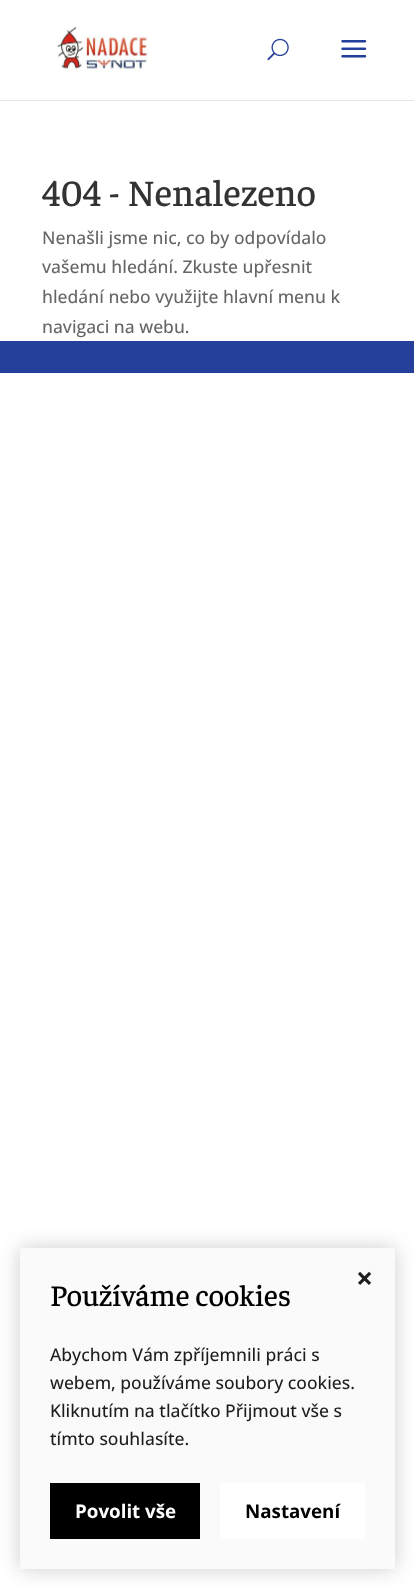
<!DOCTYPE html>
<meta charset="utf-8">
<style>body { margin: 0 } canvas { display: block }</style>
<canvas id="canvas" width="414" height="1588"></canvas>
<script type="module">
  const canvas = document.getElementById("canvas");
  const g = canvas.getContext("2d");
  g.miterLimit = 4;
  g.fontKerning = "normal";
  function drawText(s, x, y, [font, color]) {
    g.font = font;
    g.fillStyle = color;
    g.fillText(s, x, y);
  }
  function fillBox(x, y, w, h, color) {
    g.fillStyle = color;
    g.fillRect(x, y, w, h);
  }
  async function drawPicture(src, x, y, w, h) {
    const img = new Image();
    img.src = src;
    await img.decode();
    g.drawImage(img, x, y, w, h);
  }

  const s1 = ["300 37.5px Faustina", "#333333"];
  const s2 = ["500 17.5px Open Sans", "#666666"];
  const s3 = ["bold 30px Open Sans", "#1D1D1D"];
  const s4 = ["300 30px Faustina", "#000000"];
  const s5 = ["500 17.5px Open Sans", "#1D1D1D"];
  const s6 = ["bold 18.75px Open Sans", "#FFFFFF"];
  const s7 = ["bold 18.75px Open Sans", "#000000"];

  fillBox(0, 0, 414, 1588, "#FFFFFF");
  fillBox(0, 100, 414, 1, "#E6E6E6");
  await drawPicture("pic1.png", 57, 26, 92, 45);
  await drawPicture("pic2.png", 267, 38, 22, 23);
  await drawPicture("pic3.png", 341, 40, 26, 18);
  drawText("404 - Nenalezeno", 42, 206, s1);
  drawText("Nenašli jsme nic, co by odpovídalo", 42, 244, s2);
  drawText("vašemu hledání. Zkuste upřesnit", 42, 273, s2);
  drawText("hledání nebo využijte hlavní menu k", 42, 303, s2);
  drawText("navigaci na webu.", 42, 333, s2);
  fillBox(0, 341, 414, 32, "#25409B");
  g.fillStyle = "rgba(0, 0, 0, 0.2)";
  g.filter = "blur(10px)";
  g.beginPath();
  g.rect(20, 1248, 375, 321);
  g.fill();
  g.filter = "none";
  fillBox(20, 1248, 375, 321, "#FAFAFA");
  drawText("×", 356, 1289, s3);
  drawText("Používáme cookies", 50, 1306, s4);
  drawText("Abychom Vám zpříjemnili práci s", 50, 1361, s5);
  drawText("webem, používáme soubory cookies.", 50, 1389, s5);
  drawText("Kliknutím na tlačítko Přijmout vše s", 50, 1417, s5);
  drawText("tímto souhlasíte.", 50, 1445, s5);
  fillBox(50, 1483, 150, 56, "#000000");
  drawText("Povolit vše", 75, 1518, s6);
  fillBox(220, 1483, 145, 56, "#FFFFFF");
  drawText("Nastavení", 245, 1518, s7);
</script>
